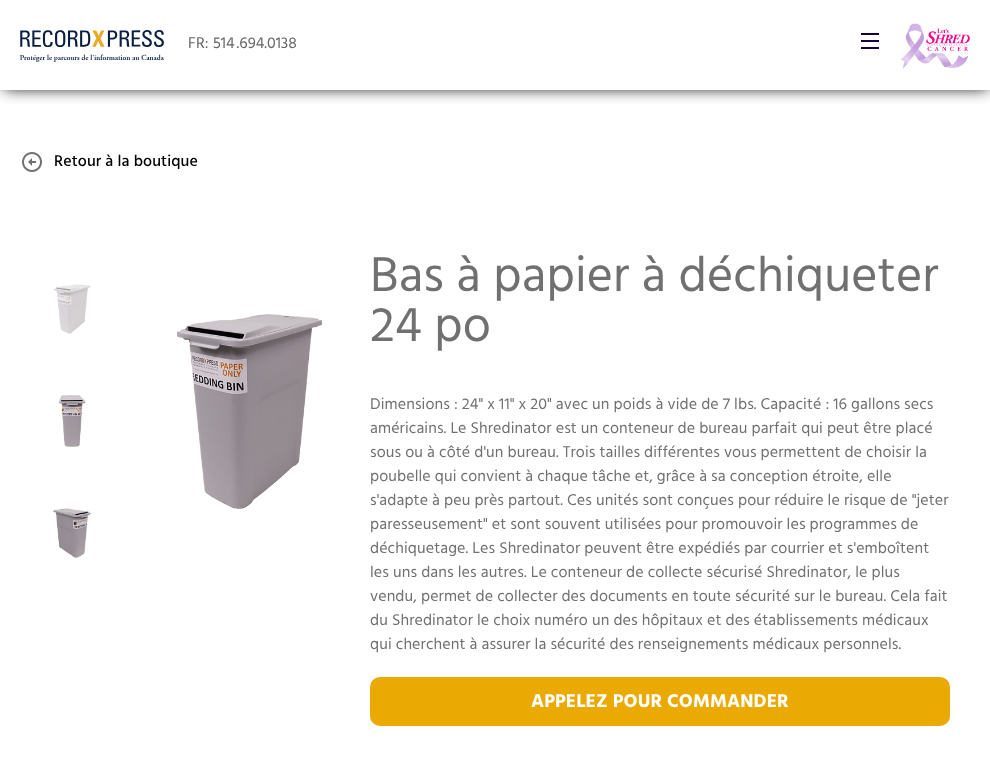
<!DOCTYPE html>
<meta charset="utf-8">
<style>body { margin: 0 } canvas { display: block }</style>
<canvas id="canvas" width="990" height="774"></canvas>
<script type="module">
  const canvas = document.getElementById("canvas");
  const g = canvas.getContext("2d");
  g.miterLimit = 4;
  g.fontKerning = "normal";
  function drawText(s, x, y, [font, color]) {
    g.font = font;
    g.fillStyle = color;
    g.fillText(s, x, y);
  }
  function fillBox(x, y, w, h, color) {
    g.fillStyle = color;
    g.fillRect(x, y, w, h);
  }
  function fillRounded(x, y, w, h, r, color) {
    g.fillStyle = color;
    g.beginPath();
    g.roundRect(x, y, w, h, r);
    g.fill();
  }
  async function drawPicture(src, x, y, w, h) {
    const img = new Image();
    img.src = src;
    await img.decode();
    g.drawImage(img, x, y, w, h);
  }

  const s1 = ["16px Hind", "#666666"];
  const s2 = ["500 16px Hind", "#000000"];
  const s3 = ["50px Hind", "#707070"];
  const s4 = ["16px Hind", "#707070"];
  const s5 = ["bold 19px Hind", "#FFFFFF"];

  fillBox(0, 0, 990, 774, "#FFFFFF");
  g.save();
  g.beginPath();
  g.rect(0, 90, 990, 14);
  g.clip();
  g.fillStyle = "#000000";
  g.filter = "blur(8px)";
  g.beginPath();
  g.rect(4, 4, 984, 84);
  g.fill();
  g.filter = "none";
  g.restore();
  await drawPicture("pic1.png", 20, 30, 144, 32);
  g.letterSpacing = "0.1px";
  drawText("FR: 514 .694.0138", 188, 48, s1);
  await drawPicture("pic2.png", 861, 33, 18, 16);
  await drawPicture("pic3.png", 901, 23, 69, 46);
  await drawPicture("pic4.png", 22, 152, 20, 20);
  drawText("Retour à la boutique", 54, 166, s2);
  await drawPicture("pic5.png", 53, 284, 38, 50);
  await drawPicture("pic6.png", 58, 395, 28, 52);
  await drawPicture("pic7.png", 53, 508, 38, 50);
  await drawPicture("pic8.png", 177, 314, 146, 195);
  drawText("Bas à papier à déchiqueter", 370, 291, s3);
  drawText("24 po", 370, 341, s3);
  drawText("Dimensions : 24\" x 11\" x 20\" avec un poids à vide de 7 lbs. Capacité : 16 gallons secs", 370, 409, s4);
  drawText("américains. Le Shredinator est un conteneur de bureau parfait qui peut être placé", 370, 433, s4);
  drawText("sous ou à côté d'un bureau. Trois tailles différentes vous permettent de choisir la", 370, 457, s4);
  drawText("poubelle qui convient à chaque tâche et, grâce à sa conception étroite, elle", 370, 481, s4);
  drawText("s'adapte à peu près partout. Ces unités sont conçues pour réduire le risque de \"jeter", 370, 505, s4);
  drawText("paresseusement\" et sont souvent utilisées pour promouvoir les programmes de", 370, 529, s4);
  drawText("déchiquetage. Les Shredinator peuvent être expédiés par courrier et s'emboîtent", 370, 553, s4);
  drawText("les uns dans les autres. Le conteneur de collecte sécurisé Shredinator, le plus", 370, 577, s4);
  drawText("vendu, permet de collecter des documents en toute sécurité sur le bureau. Cela fait", 370, 601, s4);
  drawText("du Shredinator le choix numéro un des hôpitaux et des établissements médicaux", 370, 625, s4);
  drawText("qui cherchent à assurer la sécurité des renseignements médicaux personnels.", 370, 649, s4);
  fillRounded(370, 677, 580, 49, 10, "#EBA904");
  drawText("APPELEZ POUR COMMANDER", 531, 707, s5);
</script>
